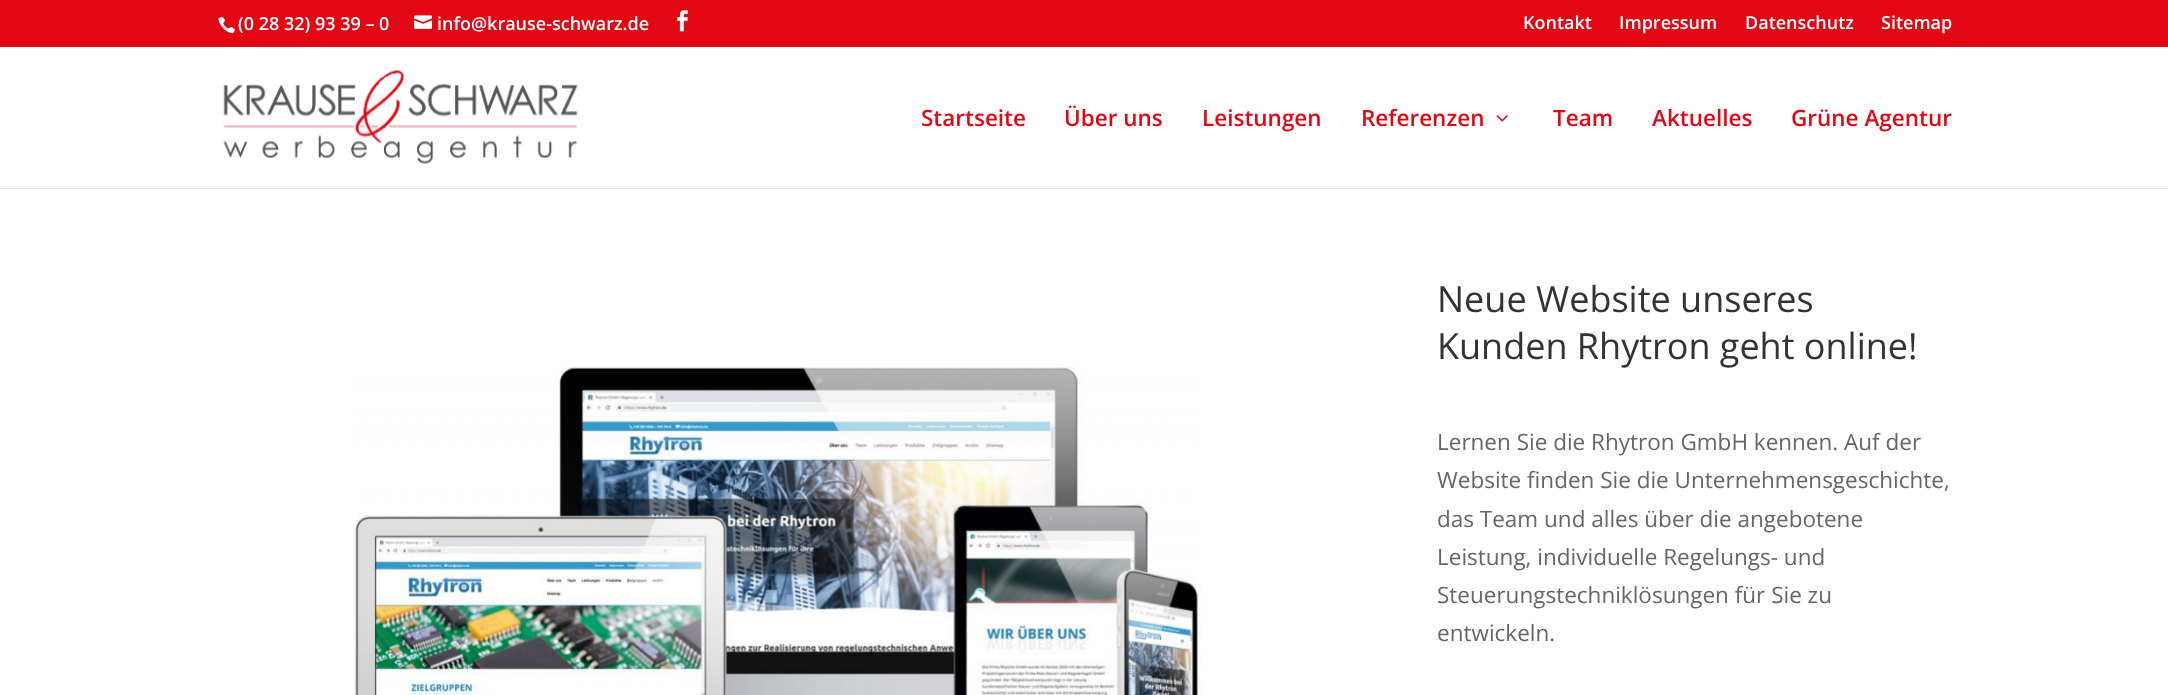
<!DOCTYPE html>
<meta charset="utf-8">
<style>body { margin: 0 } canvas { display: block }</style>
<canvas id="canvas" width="2168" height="695"></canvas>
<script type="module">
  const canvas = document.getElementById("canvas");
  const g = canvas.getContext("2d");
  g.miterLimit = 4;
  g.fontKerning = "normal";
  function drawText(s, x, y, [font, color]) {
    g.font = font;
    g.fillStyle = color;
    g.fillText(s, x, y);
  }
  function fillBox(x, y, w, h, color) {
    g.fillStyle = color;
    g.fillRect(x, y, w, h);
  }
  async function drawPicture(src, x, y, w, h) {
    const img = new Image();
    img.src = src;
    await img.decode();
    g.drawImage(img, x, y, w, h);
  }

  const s1 = ["600 18px Open Sans", "#FFFFFF"];
  const s2 = ["600 22.5px Open Sans", "#E30613"];
  const s3 = ["36px Open Sans", "#333333"];
  const s4 = ["22.5px Open Sans", "#666666"];

  fillBox(0, 0, 2168, 695, "#FFFFFF");
  fillBox(0, 0, 2168, 47, "#E30613");
  await drawPicture("pic1.png", 218, 16, 17, 18);
  drawText("(0 28 32) 93 39 – 0", 238, 30, s1);
  await drawPicture("pic2.png", 414, 15, 18, 14);
  drawText("info@krause-schwarz.de", 437, 30, s1);
  await drawPicture("pic3.png", 677, 10, 11, 22);
  drawText("Kontakt", 1523, 29, s1);
  drawText("Impressum", 1619, 29, s1);
  drawText("Datenschutz", 1745, 29, s1);
  drawText("Sitemap", 1881, 29, s1);
  fillBox(0, 188, 2168, 1, "#E6E6E6");
  await drawPicture("pic4.png", 223, 70, 355, 94);
  drawText("Startseite", 921, 126, s2);
  drawText("Über uns", 1064, 126, s2);
  drawText("Leistungen", 1202, 126, s2);
  drawText("Referenzen", 1361, 126, s2);
  await drawPicture("pic5.png", 1496, 115, 12, 7);
  drawText("Team", 1553, 126, s2);
  drawText("Aktuelles", 1652, 126, s2);
  drawText("Grüne Agentur", 1791, 126, s2);
  await drawPicture("pic6.png", 353, 366, 849, 329);
  drawText("Neue Website unseres", 1437, 312, s3);
  drawText("Kunden Rhytron geht online!", 1437, 359, s3);
  drawText("Lernen Sie die Rhytron GmbH kennen. Auf der", 1437, 450, s4);
  drawText("Website finden Sie die Unternehmensgeschichte,", 1437, 488, s4);
  drawText("das Team und alles über die angebotene", 1437, 527, s4);
  drawText("Leistung, individuelle Regelungs- und", 1437, 565, s4);
  drawText("Steuerungstechniklösungen für Sie zu", 1437, 603, s4);
  drawText("entwickeln.", 1437, 641, s4);
</script>
